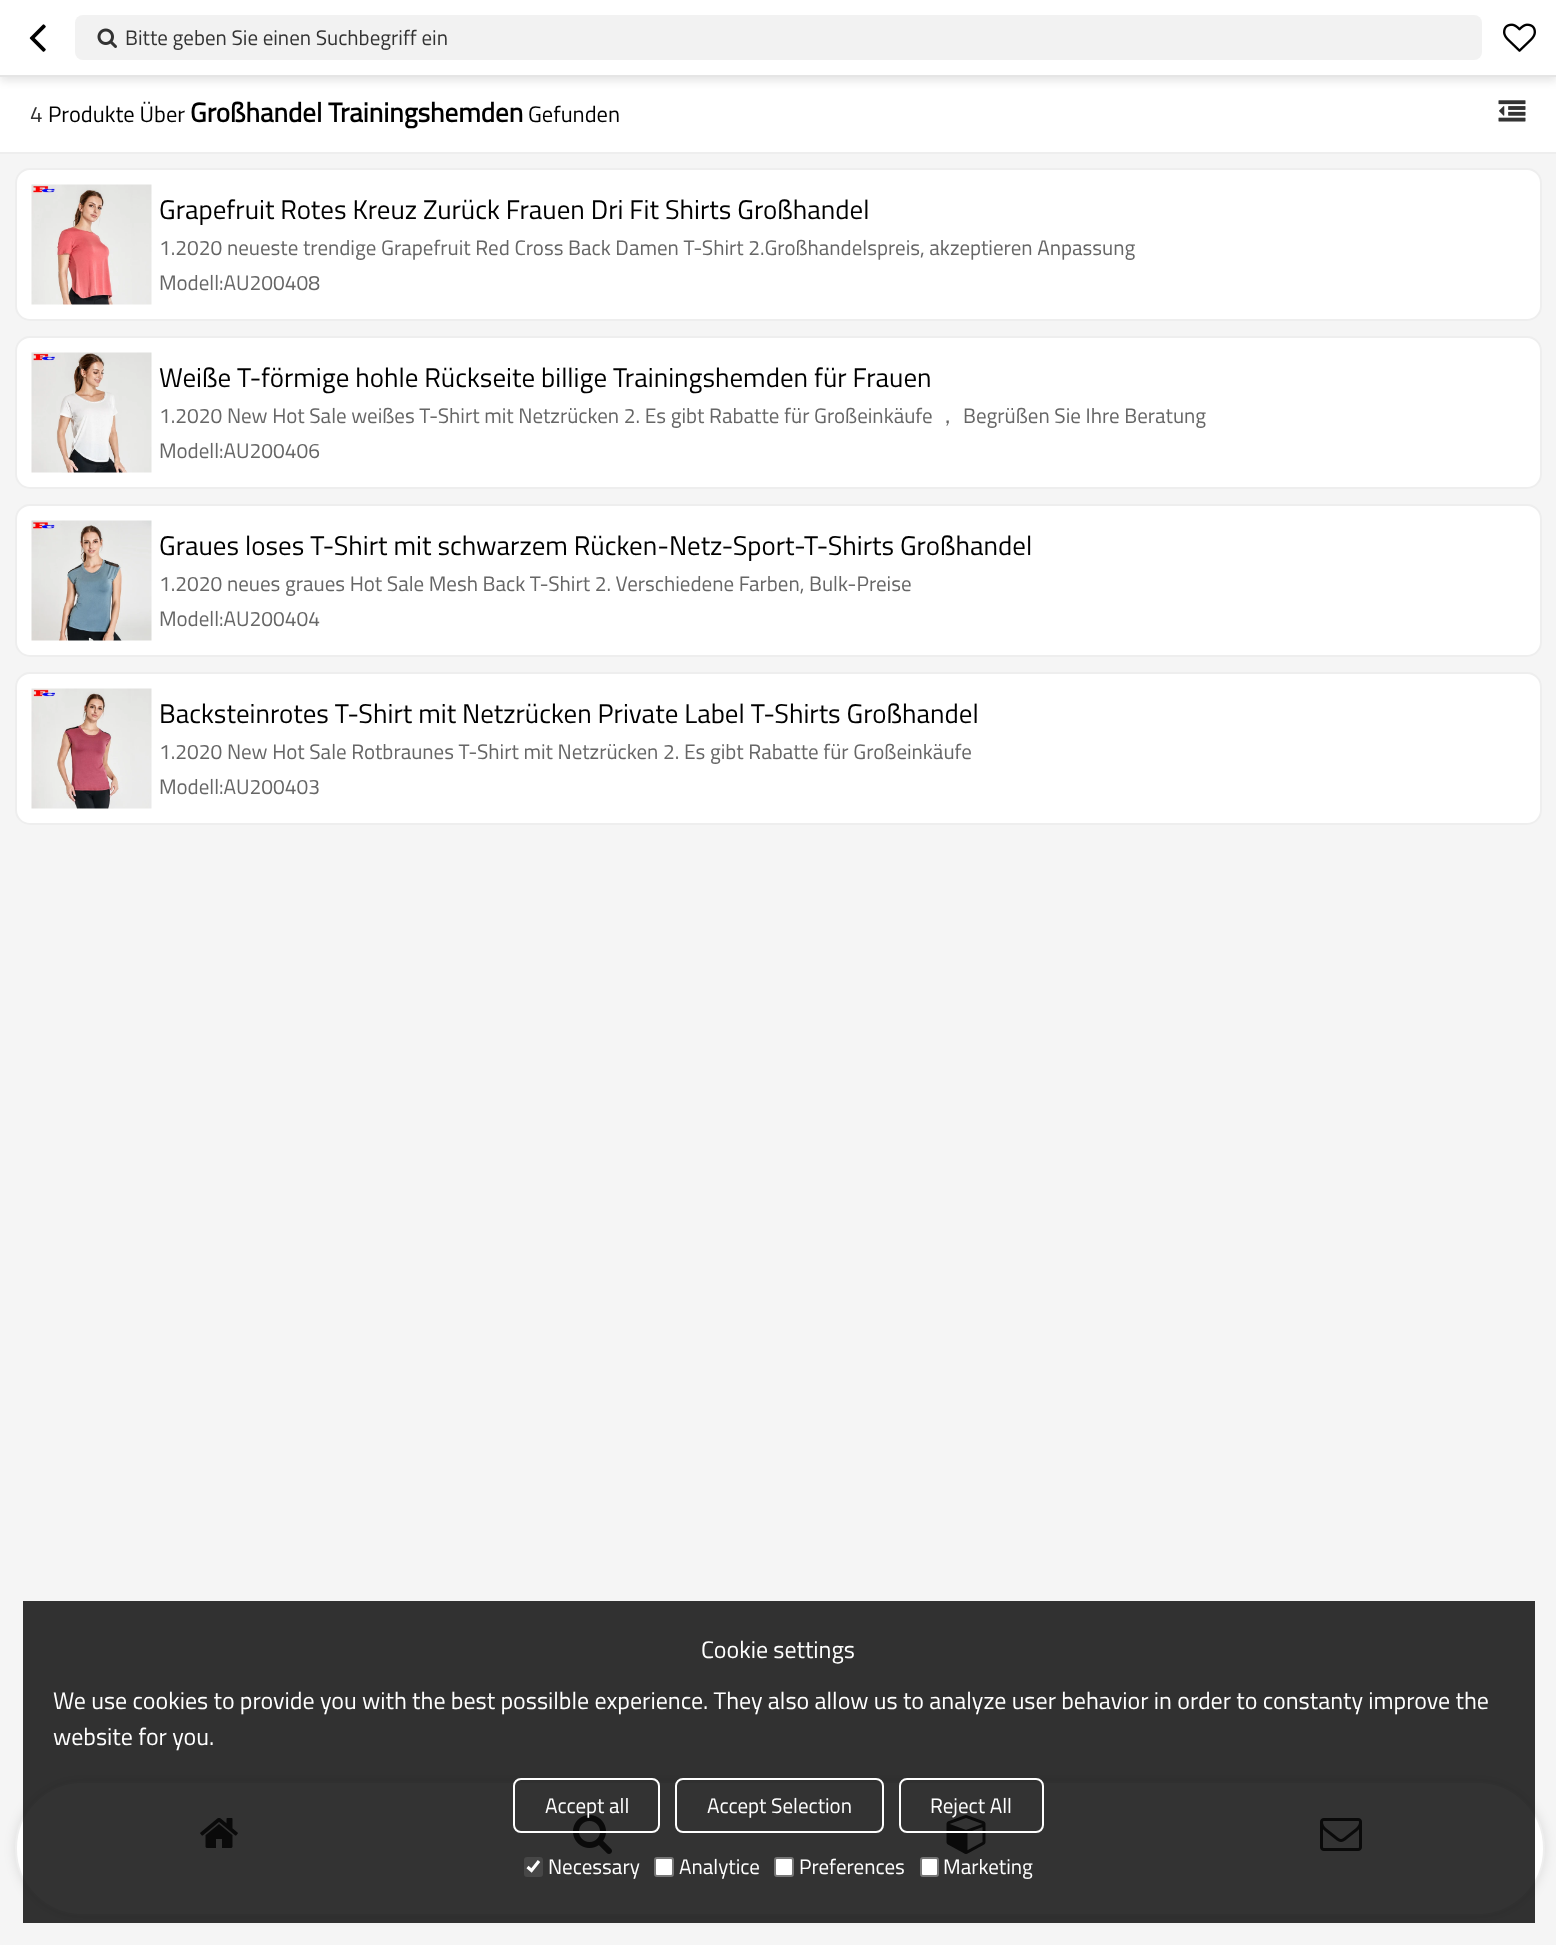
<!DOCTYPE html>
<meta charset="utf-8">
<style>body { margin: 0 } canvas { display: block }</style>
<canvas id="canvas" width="1556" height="1945"></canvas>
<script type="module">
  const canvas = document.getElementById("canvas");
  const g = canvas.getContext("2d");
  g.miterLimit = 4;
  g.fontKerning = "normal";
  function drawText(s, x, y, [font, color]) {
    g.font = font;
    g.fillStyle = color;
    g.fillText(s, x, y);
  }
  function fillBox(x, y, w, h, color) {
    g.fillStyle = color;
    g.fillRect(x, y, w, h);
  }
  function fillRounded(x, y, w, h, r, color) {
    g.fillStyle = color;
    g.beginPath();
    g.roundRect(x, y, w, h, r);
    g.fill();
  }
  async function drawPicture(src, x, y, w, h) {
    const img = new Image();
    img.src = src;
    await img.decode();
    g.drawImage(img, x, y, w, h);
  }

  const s1 = ["21px Titillium Web", "#333333"];
  const s2 = ["22.5px Titillium Web", "#333333"];
  const s3 = ["22.5px Titillium Web", "#000000"];
  const s4 = ["bold 27px Titillium Web", "#000000"];
  const s5 = ["27px Titillium Web", "#000000"];
  const s6 = ["21px Titillium Web", "#666666"];
  const s7 = ["500 21px WenQuanYi Zen Hei", "#666666"];
  const s8 = ["24px Titillium Web", "#FFFFFF"];
  const s9 = ["21px Titillium Web", "#FFFFFF"];

  fillBox(0, 0, 1556, 1945, "#F5F5F5");
  fillBox(0, 77, 1556, 75, "#FFFFFF");
  g.fillStyle = "rgba(0, 0, 0, 0.1)";
  g.filter = "blur(4px)";
  g.beginPath();
  g.rect(0, 5, 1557, 76);
  g.fill();
  g.filter = "none";
  fillBox(0, 0, 1556, 75, "#FFFFFF");
  fillBox(0, 75, 1556, 2, "#E5E5E5");
  await drawPicture("pic1.png", 29, 24, 17, 28);
  fillRounded(75, 15, 1407, 45, 8, "#F2F2F2");
  await drawPicture("pic2.png", 97, 28, 20, 20);
  drawText("Bitte geben Sie einen Suchbegriff ein", 125, 45, s1);
  await drawPicture("pic3.png", 1503, 23, 33, 29);
  fillBox(0, 152, 1556, 2, "#EEEEEE");
  drawText("4", 30, 122, s2);
  drawText("Produkte Über", 48, 122, s3);
  drawText("Großhandel Trainingshemden", 190, 122, s4);
  drawText("Gefunden", 528, 122, s3);
  await drawPicture("pic4.png", 1498, 100, 28, 22);
  g.fillStyle = "#FFFFFF";
  g.beginPath();
  g.roundRect(16, 169, 1525, 151, 14);
  g.fill();
  g.strokeStyle = "#EEEEEE";
  g.lineWidth = 2;
  g.stroke();
  await drawPicture("pic5.png", 31, 184, 121, 121);
  drawText("Grapefruit Rotes Kreuz Zurück Frauen Dri Fit Shirts Großhandel", 159, 219, s5);
  drawText("1.2020 neueste trendige Grapefruit Red Cross Back Damen T-Shirt 2.Großhandelspreis, akzeptieren Anpassung", 159, 255, s6);
  drawText("Modell:AU200408", 159, 290, s6);
  g.fillStyle = "#FFFFFF";
  g.beginPath();
  g.roundRect(16, 337, 1525, 151, 14);
  g.fill();
  g.stroke();
  await drawPicture("pic6.png", 31, 352, 121, 121);
  drawText("Weiße T-förmige hohle Rückseite billige Trainingshemden für Frauen", 159, 387, s5);
  drawText("1.2020 New Hot Sale weißes T-Shirt mit Netzrücken 2. Es gibt Rabatte für Großeinkäufe", 159, 423, s6);
  drawText("，", 937, 423, s7);
  drawText("Begrüßen Sie Ihre Beratung", 963, 423, s6);
  drawText("Modell:AU200406", 159, 458, s6);
  g.fillStyle = "#FFFFFF";
  g.beginPath();
  g.roundRect(16, 505, 1525, 151, 14);
  g.fill();
  g.stroke();
  await drawPicture("pic7.png", 31, 520, 121, 121);
  drawText("Graues loses T-Shirt mit schwarzem Rücken-Netz-Sport-T-Shirts Großhandel", 159, 555, s5);
  drawText("1.2020 neues graues Hot Sale Mesh Back T-Shirt 2. Verschiedene Farben, Bulk-Preise", 159, 591, s6);
  drawText("Modell:AU200404", 159, 626, s6);
  g.fillStyle = "#FFFFFF";
  g.beginPath();
  g.roundRect(16, 673, 1525, 151, 14);
  g.fill();
  g.stroke();
  await drawPicture("pic8.png", 31, 688, 121, 121);
  drawText("Backsteinrotes T-Shirt mit Netzrücken Private Label T-Shirts Großhandel", 159, 723, s5);
  drawText("1.2020 New Hot Sale Rotbraunes T-Shirt mit Netzrücken 2. Es gibt Rabatte für Großeinkäufe", 159, 759, s6);
  drawText("Modell:AU200403", 159, 794, s6);
  g.fillStyle = "rgba(0, 0, 0, 0.1)";
  g.filter = "blur(6px)";
  g.beginPath();
  g.roundRect(15, 1781, 1530, 135, 67.5);
  g.fill();
  g.filter = "none";
  g.fillStyle = "#FFFFFF";
  g.beginPath();
  g.roundRect(16, 1782, 1528, 133, 66.5);
  g.fill();
  g.stroke();
  await drawPicture("pic9.png", 200, 1818, 38, 30);
  await drawPicture("pic10.png", 573, 1815, 39, 39);
  await drawPicture("pic11.png", 946, 1815, 40, 39);
  await drawPicture("pic12.png", 1320, 1818, 42, 33);
  fillBox(23, 1601, 1512, 322, "rgba(0, 0, 0, 0.8)");
  drawText("Cookie settings", 701, 1658, s8);
  drawText("We use cookies to provide you with the best possilble experience. They also allow us to analyze user behavior in order to constanty improve the", 53, 1709, s8);
  drawText("website for you.", 53, 1745, s8);
  g.beginPath();
  g.roundRect(514, 1779, 145, 53, 7);
  g.strokeStyle = "#FFFFFF";
  g.stroke();
  drawText("Accept all", 545, 1813, s9);
  g.beginPath();
  g.roundRect(676, 1779, 207, 53, 7);
  g.stroke();
  drawText("Accept Selection", 707, 1813, s9);
  g.beginPath();
  g.roundRect(900, 1779, 143, 53, 7);
  g.stroke();
  drawText("Reject All", 930, 1813, s9);
  fillRounded(524, 1857, 19, 20, 3, "#474747");
  g.beginPath();
  g.moveTo(527.5, 1867);
  g.lineTo(531.5, 1870.5);
  g.lineTo(539, 1861);
  g.lineWidth = 3.1;
  g.stroke();
  drawText("Necessary", 548, 1874, s9);
  g.beginPath();
  g.roundRect(655, 1858, 18, 18, 2);
  g.fill();
  g.strokeStyle = "#767676";
  g.lineWidth = 2;
  g.stroke();
  drawText("Analytice", 679, 1874, s9);
  g.beginPath();
  g.roundRect(775, 1858, 18, 18, 2);
  g.fill();
  g.stroke();
  drawText("Preferences", 799, 1874, s9);
  g.beginPath();
  g.roundRect(921, 1858, 17, 18, 2);
  g.fill();
  g.stroke();
  drawText("Marketing", 943, 1874, s9);
</script>
